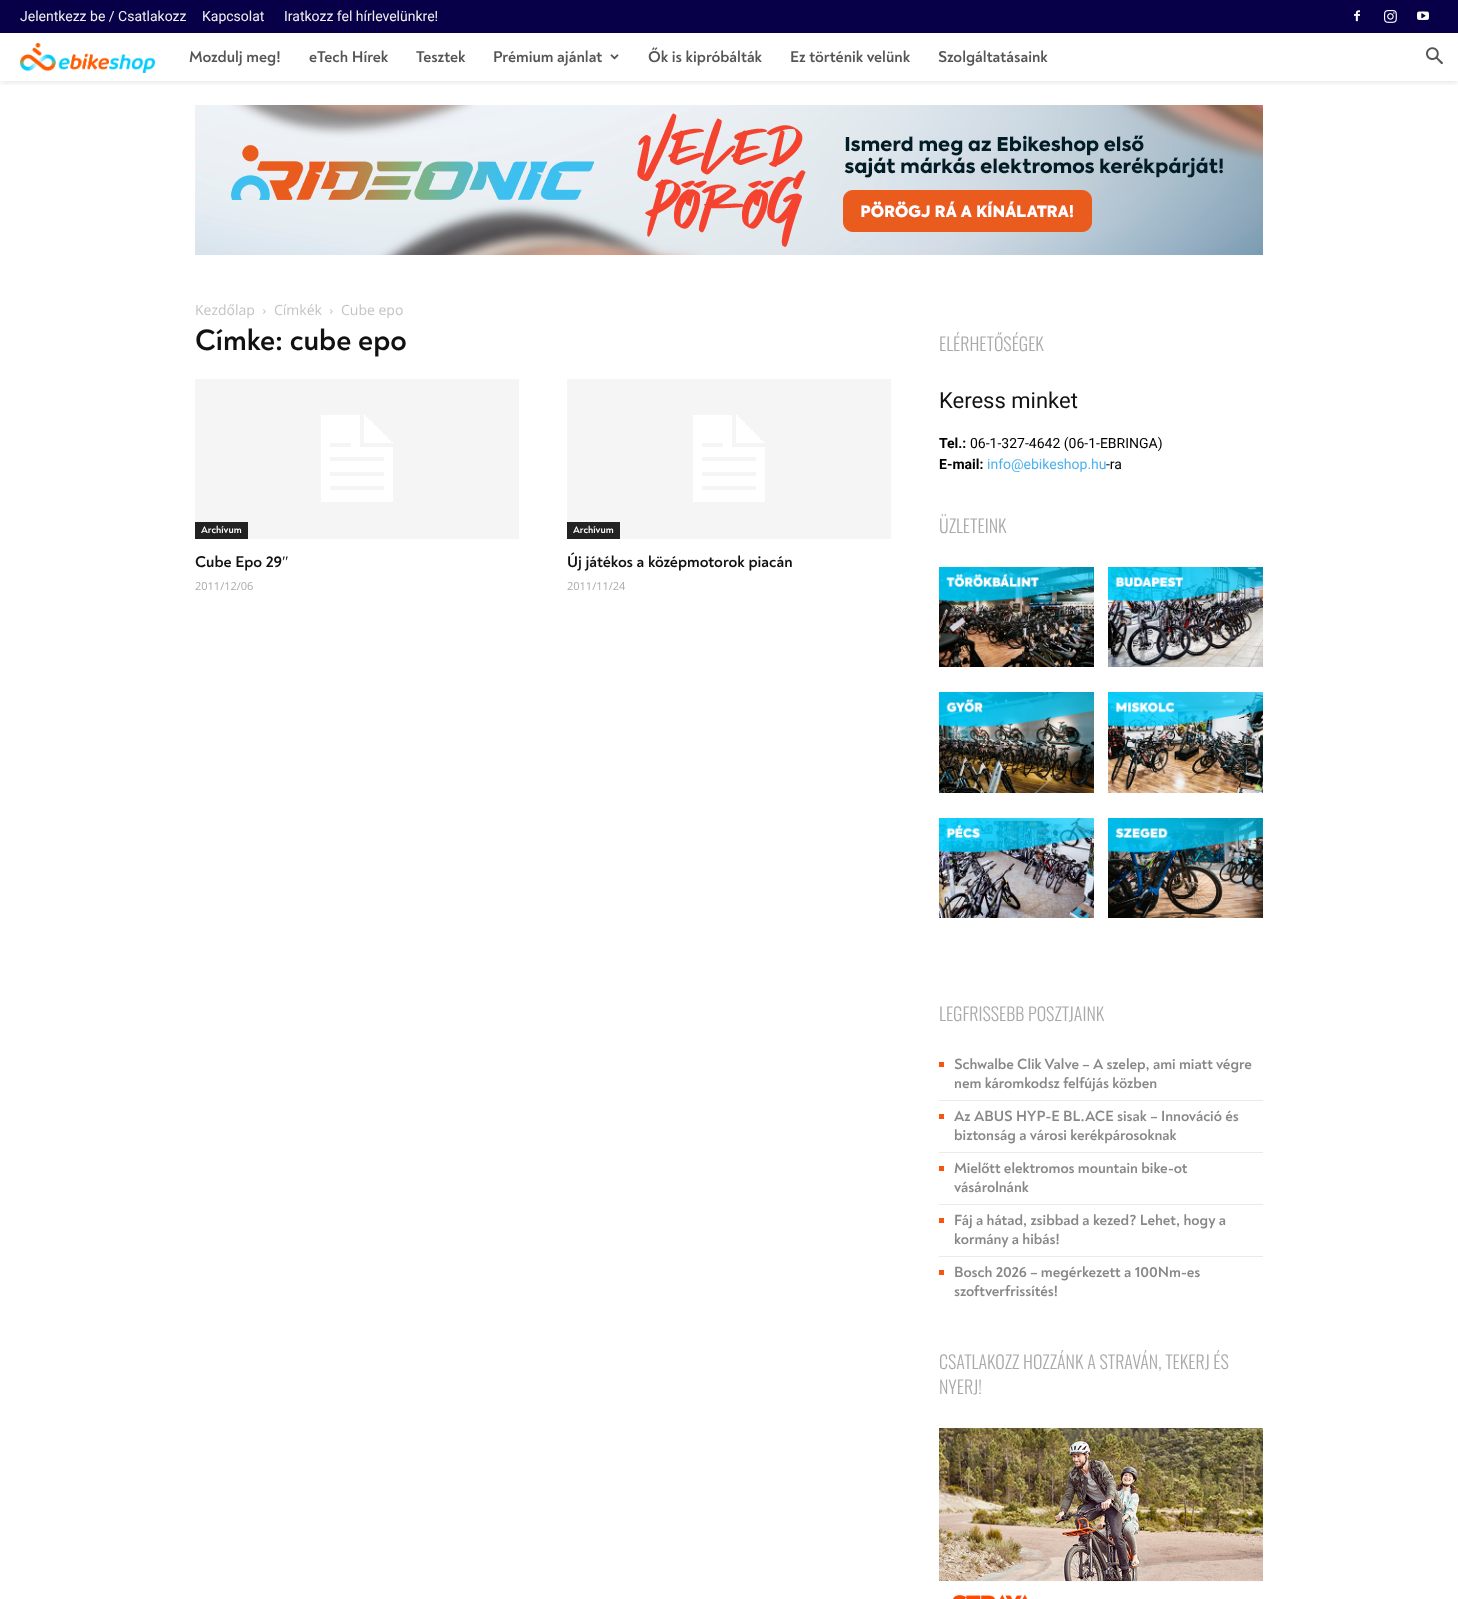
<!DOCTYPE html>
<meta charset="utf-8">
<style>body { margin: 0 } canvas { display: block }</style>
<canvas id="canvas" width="1458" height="1599"></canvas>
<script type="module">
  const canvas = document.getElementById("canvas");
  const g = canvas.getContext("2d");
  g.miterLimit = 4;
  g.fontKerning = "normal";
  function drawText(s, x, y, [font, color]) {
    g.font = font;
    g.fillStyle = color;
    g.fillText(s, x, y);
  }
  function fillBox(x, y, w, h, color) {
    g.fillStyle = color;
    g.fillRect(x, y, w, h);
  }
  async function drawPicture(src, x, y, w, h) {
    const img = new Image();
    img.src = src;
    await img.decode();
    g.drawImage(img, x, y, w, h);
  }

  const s1 = ["14px Roboto", "#EEEEEE"];
  const s2 = ["bold 16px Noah", "#555555"];
  const s3 = ["14px Open Sans", "#C3C3C3"];
  const s4 = ["bold 30px Noah", "#111111"];
  const s5 = ["bold 10px Noah", "#FFFFFF"];
  const s6 = ["bold 16px Noah", "#111111"];
  const s7 = ["16px Liberation Serif", "#111111"];
  const s8 = ["11px Open Sans", "#AAAAAA"];
  const s9 = ["300 18px Oswald", "#AAAAAA"];
  const s10 = ["22px Roboto", "#111111"];
  const s11 = ["bold 14px Roboto", "#000000"];
  const s12 = ["14px Roboto", "#000000"];
  const s13 = ["14px Roboto", "#4DB2EC"];
  const s14 = ["bold 15px Noah", "#888888"];

  fillBox(0, 0, 1458, 1599, "#FFFFFF");
  g.save();
  g.beginPath();
  g.rect(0, 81, 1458, 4);
  g.clip();
  g.fillStyle = "rgba(0, 0, 0, 0.09)";
  g.filter = "blur(3px)";
  g.beginPath();
  g.rect(0, 35, 1458, 48);
  g.fill();
  g.filter = "none";
  g.restore();
  fillBox(0, 0, 1458, 33, "#070048");
  drawText("Jelentkezz be / Csatlakozz", 20, 21, s1);
  drawText("Kapcsolat", 202, 21, s1);
  drawText("Iratkozz fel hírlevelünkre!", 284, 21, s1);
  await drawPicture("pic1.png", 1354, 10, 6, 12);
  await drawPicture("pic2.png", 1384, 10, 13, 13);
  await drawPicture("pic3.png", 1417, 11, 12, 9);
  await drawPicture("pic4.png", 20, 43, 135, 30);
  drawText("Mozdulj meg!", 189, 62, s2);
  drawText("eTech Hírek", 309, 62, s2);
  drawText("Tesztek", 416, 62, s2);
  drawText("Prémium ajánlat", 493, 62, s2);
  await drawPicture("pic5.png", 610, 54, 9, 6);
  drawText("Ők is kipróbálták", 648, 62, s2);
  drawText("Ez történik velünk", 790, 62, s2);
  drawText("Szolgáltatásaink", 938, 62, s2);
  await drawPicture("pic6.png", 1426, 47, 17, 18);
  await drawPicture("pic7.png", 195, 105, 1068, 150);
  drawText("Kezdőlap", 195, 315, s3);
  await drawPicture("pic8.png", 263, 309, 3, 5);
  drawText("Címkék", 274, 315, s3);
  await drawPicture("pic8.png", 330, 309, 3, 5);
  drawText("Cube epo", 341, 315, s3);
  drawText("Címke: cube epo", 195, 350, s4);
  await drawPicture("pic9.png", 195, 379, 324, 160);
  fillBox(195, 522, 53, 17, "#222222");
  drawText("Archívum", 201, 533, s5);
  drawText("Cube Epo 29", 195, 567, s6);
  drawText("″", 282, 567, s7);
  drawText("2011/12/06", 195, 590, s8);
  await drawPicture("pic9.png", 567, 379, 324, 160);
  fillBox(567, 522, 53, 17, "#222222");
  drawText("Archívum", 573, 533, s5);
  drawText("Új játékos a középmotorok piacán", 567, 567, s6);
  drawText("2011/11/24", 567, 590, s8);
  drawText("ELÉRHETŐSÉGEK", 939, 351, s9);
  drawText("Keress minket", 939, 408, s10);
  drawText("Tel.:", 939, 448, s11);
  drawText("06-1-327-4642 (06-1-EBRINGA)", 970, 448, s12);
  drawText("E-mail:", 939, 469, s11);
  drawText("info@ebikeshop.hu", 987, 469, s13);
  drawText("-ra", 1106, 469, s12);
  drawText("ÜZLETEINK", 939, 533, s9);
  await drawPicture("pic10.png", 939, 567, 155, 100);
  await drawPicture("pic11.png", 1108, 567, 155, 100);
  await drawPicture("pic12.png", 939, 692, 155, 101);
  await drawPicture("pic13.png", 1108, 692, 155, 101);
  await drawPicture("pic14.png", 939, 818, 155, 100);
  await drawPicture("pic15.png", 1108, 818, 155, 100);
  drawText("LEGFRISSEBB POSZTJAINK", 939, 1021, s9);
  fillBox(939, 1100, 324, 1, "#EAEAEA");
  fillBox(939, 1062, 5, 5, "#F45511");
  drawText("Schwalbe Clik Valve – A szelep, ami miatt végre", 954, 1069, s14);
  drawText("nem káromkodsz felfújás közben", 954, 1088, s14);
  fillBox(939, 1152, 324, 1, "#EAEAEA");
  fillBox(939, 1114, 5, 5, "#F45511");
  drawText("Az ABUS HYP-E BL.ACE sisak – Innováció és", 954, 1121, s14);
  drawText("biztonság a városi kerékpárosoknak", 954, 1140, s14);
  fillBox(939, 1204, 324, 1, "#EAEAEA");
  fillBox(939, 1166, 5, 5, "#F45511");
  drawText("Mielőtt elektromos mountain bike-ot", 954, 1173, s14);
  drawText("vásárolnánk", 954, 1192, s14);
  fillBox(939, 1256, 324, 1, "#EAEAEA");
  fillBox(939, 1218, 5, 5, "#F45511");
  drawText("Fáj a hátad, zsibbad a kezed? Lehet, hogy a", 954, 1225, s14);
  drawText("kormány a hibás!", 954, 1244, s14);
  fillBox(939, 1270, 5, 5, "#F45511");
  drawText("Bosch 2026 – megérkezett a 100Nm-es", 954, 1277, s14);
  drawText("szoftverfrissítés!", 954, 1296, s14);
  drawText("CSATLAKOZZ HOZZÁNK A STRAVÁN, TEKERJ ÉS", 939, 1369, s9);
  drawText("NYERJ!", 939, 1394, s9);
  await drawPicture("pic16.png", 939, 1428, 324, 171);
</script>
